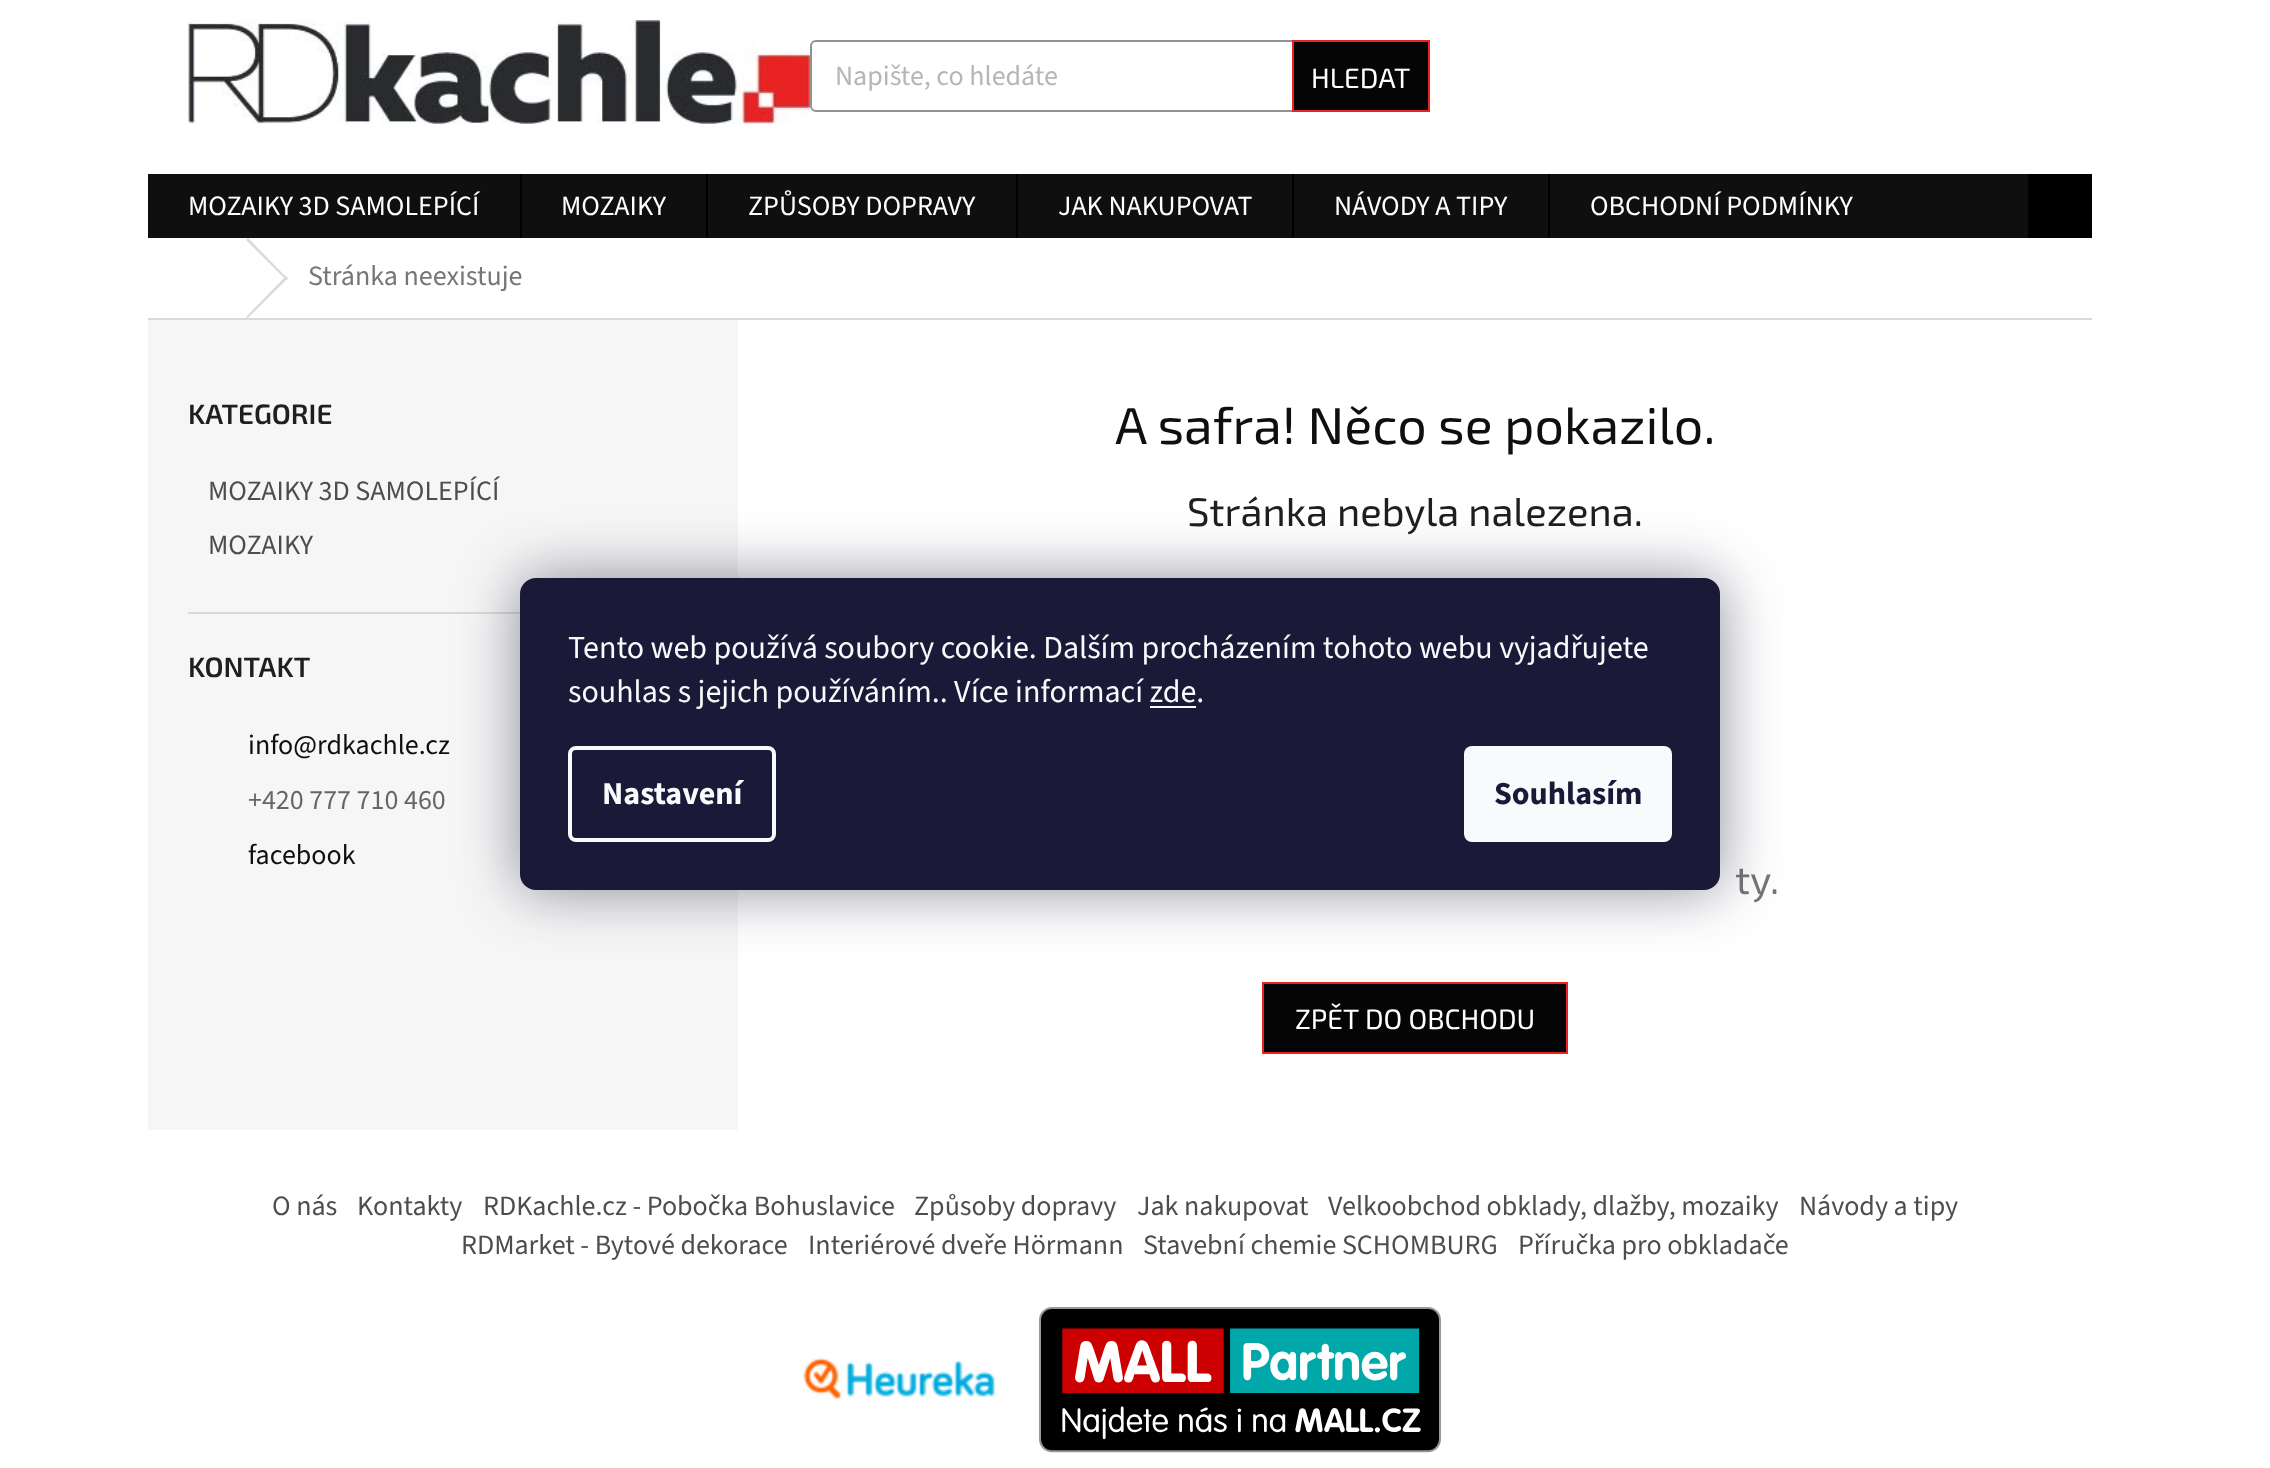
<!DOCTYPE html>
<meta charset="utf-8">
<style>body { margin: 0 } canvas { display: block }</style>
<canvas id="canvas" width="2270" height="1468"></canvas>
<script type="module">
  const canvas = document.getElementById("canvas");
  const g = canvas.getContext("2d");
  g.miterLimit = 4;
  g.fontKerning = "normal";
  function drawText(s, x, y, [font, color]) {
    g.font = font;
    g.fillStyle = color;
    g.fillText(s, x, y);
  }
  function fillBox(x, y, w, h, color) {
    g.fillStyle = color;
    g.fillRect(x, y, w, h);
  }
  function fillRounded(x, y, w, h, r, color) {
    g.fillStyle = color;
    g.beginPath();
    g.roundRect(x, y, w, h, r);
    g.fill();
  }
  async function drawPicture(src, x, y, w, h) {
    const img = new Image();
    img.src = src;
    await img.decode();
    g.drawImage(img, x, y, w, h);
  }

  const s1 = ["28px 'Source Sans 3'", "#B6B6B6"];
  const s2 = ["28px 'Exo 2'", "#FFFFFF"];
  const s3 = ["28px 'Source Sans 3'", "#FFFFFF"];
  const s4 = ["28px 'Source Sans 3'", "#767676"];
  const s5 = ["600 28px 'Exo 2'", "#1F1F1F"];
  const s6 = ["28px 'Source Sans 3'", "#4D4D4D"];
  const s7 = ["28px 'Source Sans 3'", "#0F0F0F"];
  const s8 = ["28px 'Source Sans 3'", "#666666"];
  const s9 = ["52px 'Exo 2'", "#0F0F0F"];
  const s10 = ["40px 'Exo 2'", "#1F1F1F"];
  const s11 = ["40px 'Exo 2'", "#767676"];
  const s12 = ["32px 'Source Sans 3'", "#F8FAFB"];
  const s13 = ["bold 32px 'Source Sans 3'", "#F8FAFB"];
  const s14 = ["bold 32px 'Source Sans 3'", "#1A1937"];

  fillBox(0, 0, 2270, 1468, "#FFFFFF");
  await drawPicture("pic1.png", 188, 20, 622, 104);
  g.beginPath();
  g.roundRect(811, 41, 618, 70, 5);
  g.strokeStyle = "#919191";
  g.lineWidth = 2;
  g.stroke();
  drawText("Napište, co hledáte", 835, 85, s1);
  g.fillStyle = "#050505";
  g.beginPath();
  g.rect(1293, 41, 136, 70);
  g.fill();
  g.strokeStyle = "#E92223";
  g.stroke();
  drawText("HLEDAT", 1311, 88, s2);
  fillBox(148, 174, 1880, 64, "#0F0F0F");
  drawText("MOZAIKY 3D SAMOLEPÍCÍ", 188, 215, s3);
  fillBox(520, 174, 2, 64, "#000000");
  drawText("MOZAIKY", 561, 215, s3);
  fillBox(706, 174, 2, 64, "#000000");
  drawText("ZPŮSOBY DOPRAVY", 748, 215, s3);
  fillBox(1016, 174, 2, 64, "#000000");
  drawText("JAK NAKUPOVAT", 1058, 215, s3);
  fillBox(1292, 174, 2, 64, "#000000");
  drawText("NÁVODY A TIPY", 1334, 215, s3);
  fillBox(1548, 174, 2, 64, "#000000");
  drawText("OBCHODNÍ PODMÍNKY", 1590, 215, s3);
  fillBox(2028, 174, 64, 64, "#000000");
  fillBox(148, 318, 1944, 2, "#DADADA");
  g.beginPath();
  g.moveTo(246, 240);
  g.lineTo(248, 238);
  g.lineTo(288, 279);
  g.lineTo(286, 280);
  g.closePath();
  g.fill();
  g.beginPath();
  g.moveTo(286, 276);
  g.lineTo(288, 278);
  g.lineTo(248, 318);
  g.lineTo(246, 317);
  g.closePath();
  g.fill();
  drawText("Stránka neexistuje", 308, 285, s4);
  fillBox(148, 320, 590, 810, "#F6F6F6");
  fillBox(188, 612, 332, 2, "#DADADA");
  drawText("KATEGORIE", 188, 424, s5);
  drawText("MOZAIKY 3D SAMOLEPÍCÍ", 208, 500, s6);
  drawText("MOZAIKY", 208, 554, s6);
  drawText("KONTAKT", 188, 677, s5);
  drawText("info@rdkachle.cz", 248, 754, s7);
  drawText("+420 777 710 460", 248, 809, s8);
  drawText("facebook", 248, 864, s7);
  drawText("A safra! Něco se pokazilo.", 1115, 444, s9);
  drawText("Stránka nebyla nalezena.", 1187, 526, s10);
  drawText("ty.", 1735, 894, s11);
  g.fillStyle = "#050505";
  g.beginPath();
  g.rect(1263, 983, 304, 70);
  g.fill();
  g.stroke();
  drawText("ZPĚT DO OBCHODU", 1295, 1029, s2);
  drawText("O nás", 272, 1215, s6);
  drawText("Kontakty", 357, 1215, s6);
  drawText("RDKachle.cz - Pobočka Bohuslavice", 483, 1215, s6);
  drawText("Způsoby dopravy", 914, 1215, s6);
  drawText("Jak nakupovat", 1137, 1215, s6);
  drawText("Velkoobchod obklady, dlažby, mozaiky", 1328, 1215, s6);
  drawText("Návody a tipy", 1799, 1215, s6);
  drawText("RDMarket - Bytové dekorace", 461, 1254, s6);
  drawText("Interiérové dveře Hörmann", 808, 1254, s6);
  drawText("Stavební chemie SCHOMBURG", 1143, 1254, s6);
  drawText("Příručka pro obkladače", 1518, 1254, s6);
  await drawPicture("pic2.png", 803, 1357, 192, 43);
  await drawPicture("pic3.png", 1039, 1307, 402, 146);
  g.fillStyle = "rgba(27, 25, 57, 0.5)";
  g.filter = "blur(30px)";
  g.beginPath();
  g.roundRect(520, 578, 1200, 312, 16);
  g.fill();
  g.filter = "none";
  fillRounded(520, 578, 1200, 312, 16, "#1A1937");
  drawText("Tento web používá soubory cookie. Dalším procházením tohoto webu vyjadřujete", 568, 658, s12);
  drawText("souhlas s jejich používáním.. Více informací zde.", 568, 702, s12);
  fillBox(1150, 706, 46, 2, "#F8FAFB");
  g.beginPath();
  g.roundRect(570, 748, 204, 92, 6);
  g.strokeStyle = "#F8FAFB";
  g.lineWidth = 4;
  g.stroke();
  drawText("Nastavení", 602, 804, s13);
  fillRounded(1464, 746, 208, 96, 8, "#F8FAFB");
  drawText("Souhlasím", 1494, 804, s14);
</script>
